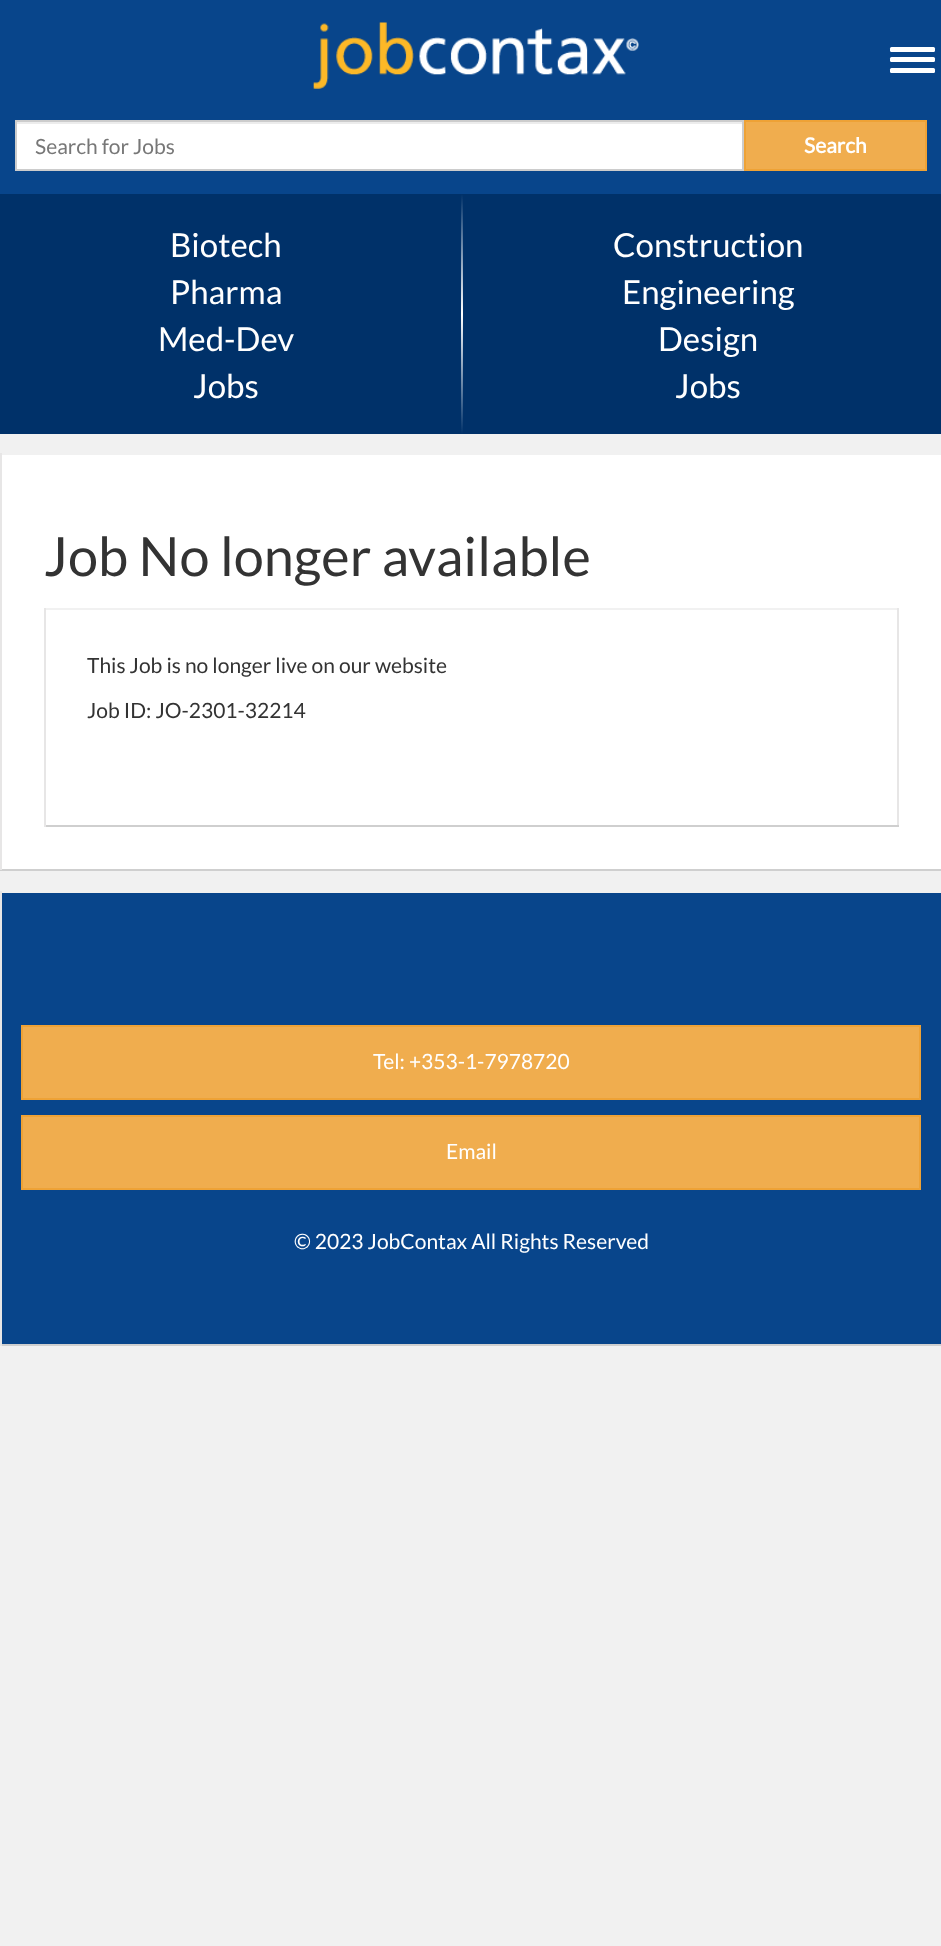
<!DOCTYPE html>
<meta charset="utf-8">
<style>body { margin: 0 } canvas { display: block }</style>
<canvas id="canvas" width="941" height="1946"></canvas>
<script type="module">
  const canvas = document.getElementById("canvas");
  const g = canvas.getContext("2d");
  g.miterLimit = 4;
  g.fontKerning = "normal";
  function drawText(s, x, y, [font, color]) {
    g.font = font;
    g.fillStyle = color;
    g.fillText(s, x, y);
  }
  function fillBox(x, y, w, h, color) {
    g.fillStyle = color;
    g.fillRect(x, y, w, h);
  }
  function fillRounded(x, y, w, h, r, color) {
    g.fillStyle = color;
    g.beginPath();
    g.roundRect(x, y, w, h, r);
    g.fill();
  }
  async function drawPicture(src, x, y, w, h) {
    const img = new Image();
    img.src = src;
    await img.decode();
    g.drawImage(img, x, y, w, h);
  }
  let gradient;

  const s1 = ["21px Lato", "#777777"];
  const s2 = ["bold 21px Lato", "#FFFFFF"];
  const s3 = ["33px Lato", "#FFFFFF"];
  const s4 = ["54px Lato", "#333333"];
  const s5 = ["21px Lato", "#333333"];
  const s6 = ["21px Lato", "#FFFFFF"];

  fillBox(0, 0, 941, 1946, "#F1F1F1");
  fillBox(0, 0, 941, 194, "#08458B");
  await drawPicture("pic1.png", 313, 22, 326, 67);
  fillRounded(890, 47, 45, 5, 1.5, "#FFFFFF");
  fillRounded(890, 57, 45, 5, 1.5, "#FFFFFF");
  fillRounded(890, 68, 45, 5, 1.5, "#FFFFFF");
  fillBox(17, 124, 725, 45, "#FFFFFF");
  fillBox(17, 122, 726, 2, "#ECECEC");
  g.strokeStyle = "#CCCCCC";
  g.lineWidth = 2;
  g.strokeRect(16, 121, 727, 49);
  drawText("Search for Jobs", 35, 154, s1);
  g.fillStyle = "#F0AD4E";
  g.beginPath();
  g.rect(745, 121, 181, 49);
  g.fill();
  g.strokeStyle = "#EEA236";
  g.stroke();
  drawText("Search", 804, 153, s2);
  fillBox(0, 194, 461, 240, "#003169");
  drawText("Biotech", 170, 257, s3);
  drawText("Pharma", 170, 304, s3);
  drawText("Med-Dev", 158, 351, s3);
  drawText("Jobs", 193, 398, s3);
  fillBox(463, 194, 478, 240, "#003169");
  gradient = g.createLinearGradient(461, 314, 461, 194);
  gradient.addColorStop(0, "#FFFFFF");
  gradient.addColorStop(1, "#003169");
  g.fillStyle = gradient;
  g.fillRect(461, 194, 2, 120);
  drawText("Construction", 613, 257, s3);
  drawText("Engineering", 622, 304, s3);
  drawText("Design", 658, 351, s3);
  drawText("Jobs", 675, 398, s3);
  gradient = g.createLinearGradient(461, 314, 461, 434);
  gradient.addColorStop(0, "#FFFFFF");
  gradient.addColorStop(1, "#003169");
  g.fillStyle = gradient;
  g.fillRect(461, 314, 2, 120);
  fillBox(2, 455, 939, 414, "#FFFFFF");
  fillBox(0, 869, 941, 2, "#CFCFCF");
  fillBox(0, 453, 2, 417, "#E7E6E6");
  drawText("Job No longer available", 44, 576, s4);
  fillBox(44, 608, 855, 2, "#F1F1F1");
  fillBox(897, 608, 2, 219, "#E7E6E6");
  fillBox(44, 825, 855, 2, "#CFCFCF");
  fillBox(44, 608, 2, 219, "#E7E6E6");
  drawText("This Job is no longer live on our website", 87, 673, s5);
  drawText("Job ID: JO-2301-32214", 87, 718, s5);
  fillBox(2, 893, 939, 451, "#08458B");
  fillBox(0, 1344, 941, 2, "#CFCFCF");
  fillBox(0, 891, 2, 455, "#E7E6E6");
  g.fillStyle = "#F0AD4E";
  g.beginPath();
  g.rect(22, 1026, 898, 73);
  g.fill();
  g.stroke();
  drawText("Tel: +353-1-7978720", 373, 1069, s6);
  g.fillStyle = "#F0AD4E";
  g.beginPath();
  g.rect(22, 1116, 898, 73);
  g.fill();
  g.stroke();
  drawText("Email", 446, 1159, s6);
  drawText("© 2023 JobContax All Rights Reserved", 294, 1249, s6);
</script>
